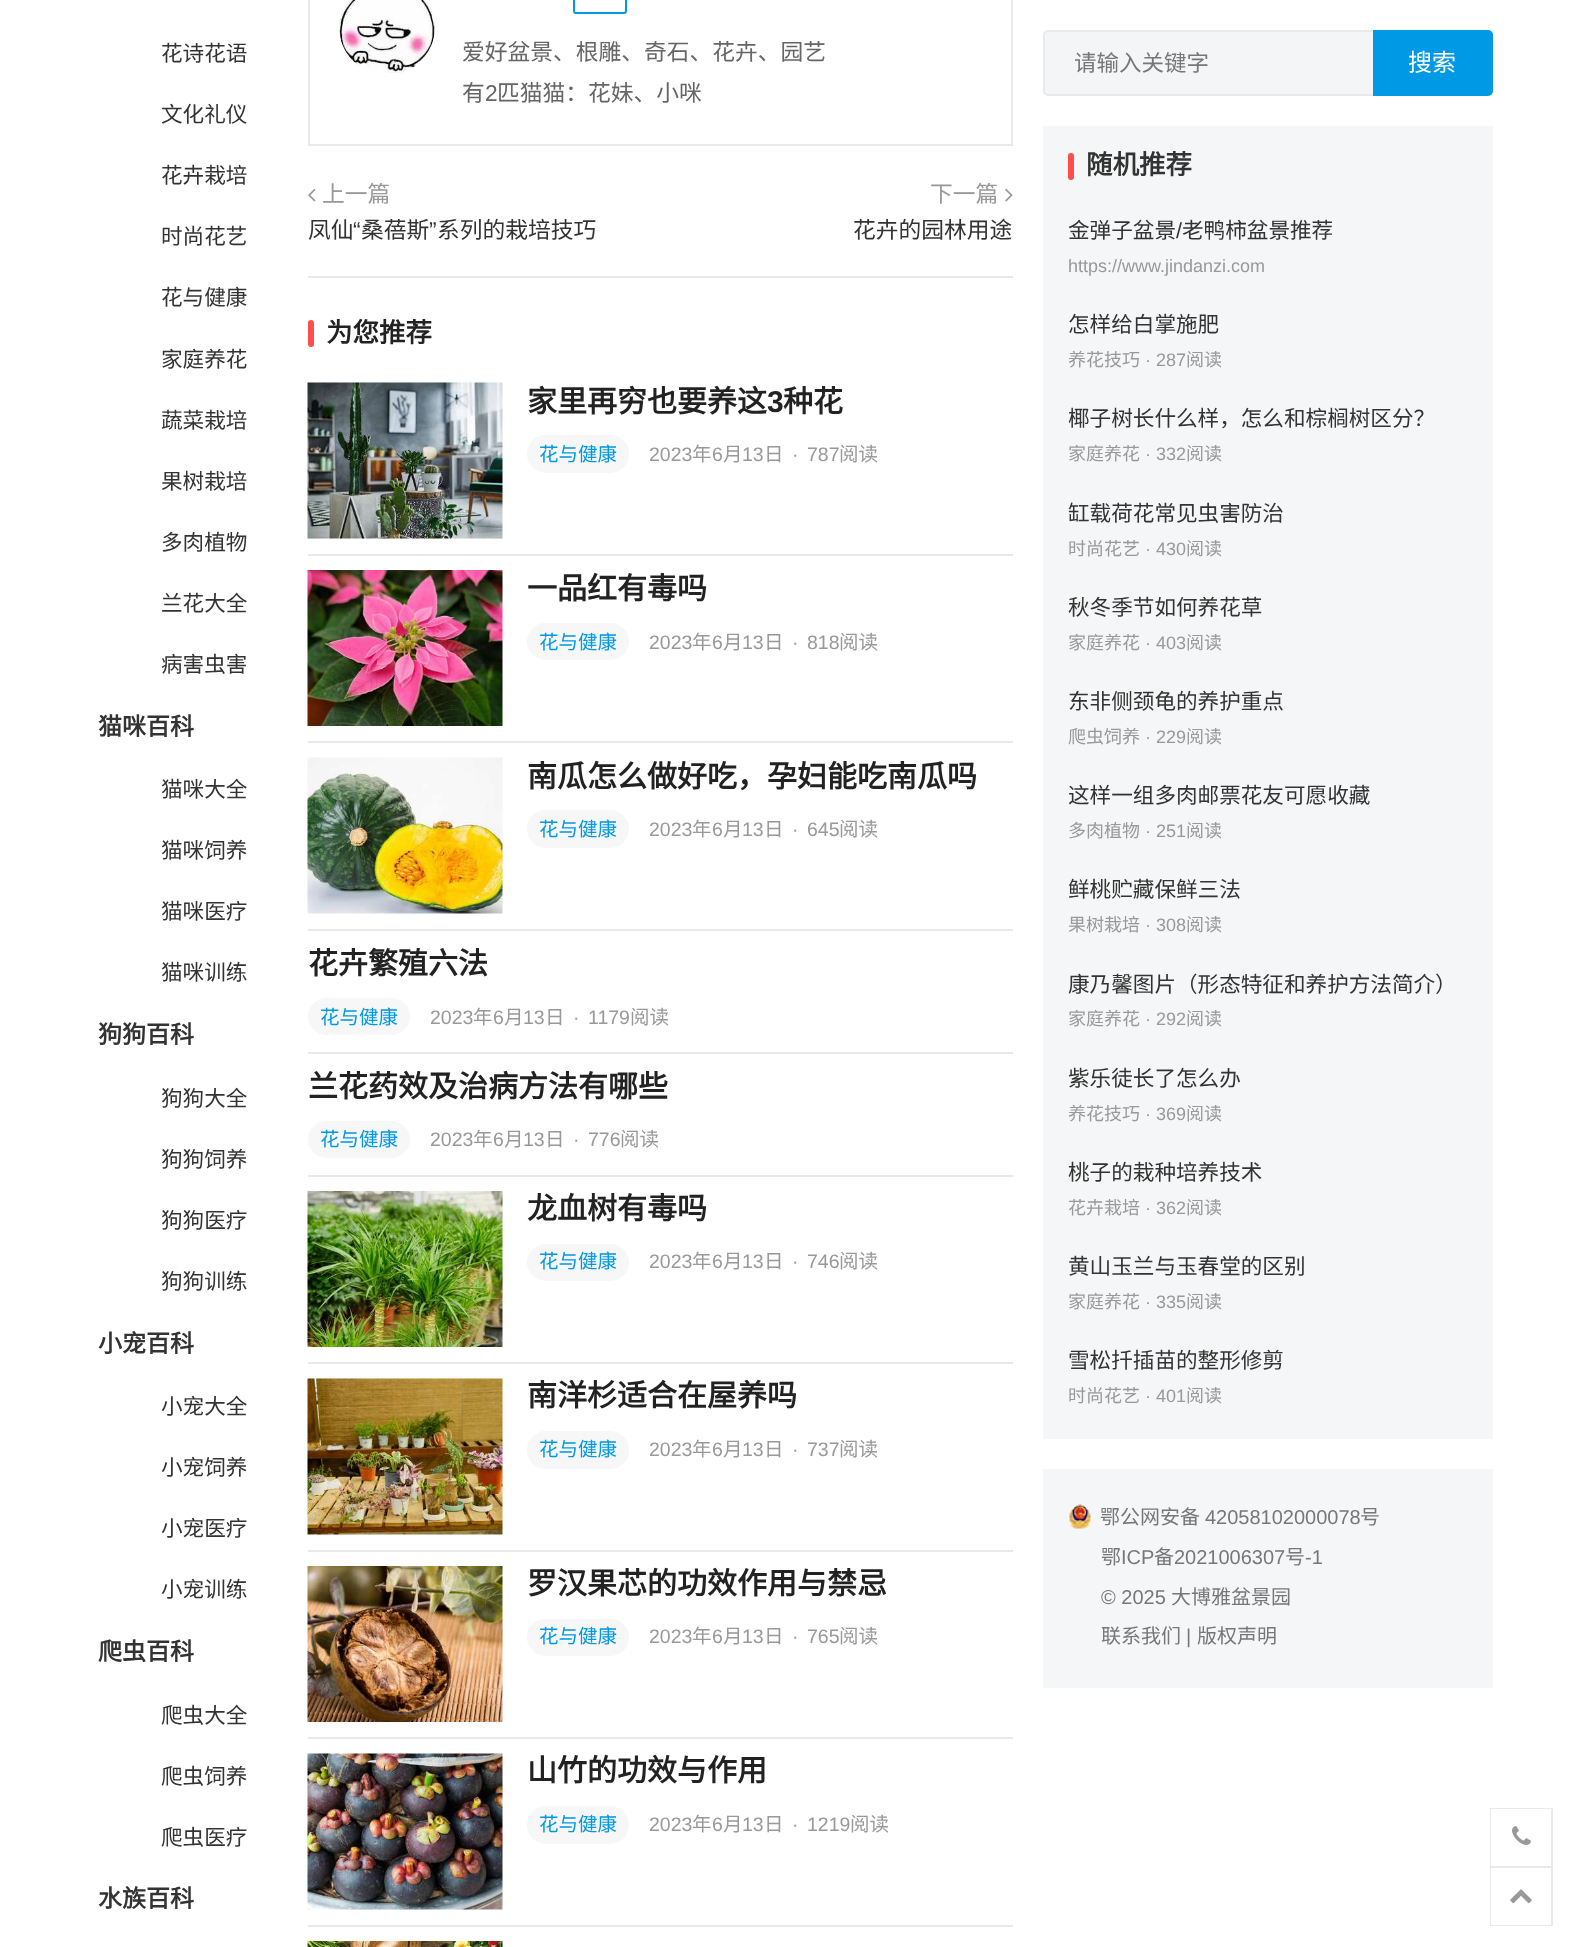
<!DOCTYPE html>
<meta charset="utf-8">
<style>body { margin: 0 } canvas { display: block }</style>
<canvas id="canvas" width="1575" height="1947"></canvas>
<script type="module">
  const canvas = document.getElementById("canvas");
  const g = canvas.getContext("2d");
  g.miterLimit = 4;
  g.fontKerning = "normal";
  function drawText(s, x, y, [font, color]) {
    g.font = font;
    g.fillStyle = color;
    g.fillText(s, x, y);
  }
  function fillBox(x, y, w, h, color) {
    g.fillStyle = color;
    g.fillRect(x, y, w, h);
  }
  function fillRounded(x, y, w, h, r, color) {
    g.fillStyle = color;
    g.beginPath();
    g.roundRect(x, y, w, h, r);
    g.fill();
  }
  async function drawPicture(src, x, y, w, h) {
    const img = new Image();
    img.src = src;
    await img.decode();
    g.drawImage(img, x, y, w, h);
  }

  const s1 = ["21.6px Noto Sans CJK SC", "#333333"];
  const s2 = ["bold 24px Noto Sans CJK SC", "#333333"];
  const s3 = ["22.75px Noto Sans CJK SC", "#666666"];
  const s4 = ["22.75px Liberation Sans", "#666666"];
  const s5 = ["22.75px Noto Sans CJK SC", "#999999"];
  const s6 = ["22.75px Noto Sans CJK SC", "#333333"];
  const s7 = ["22.75px Liberation Sans", "#333333"];
  const s8 = ["bold 26.5px Noto Sans CJK SC", "#222222"];
  const s9 = ["bold 30px Noto Sans CJK SC", "#222222"];
  const s10 = ["bold 30px Liberation Sans", "#222222"];
  const s11 = ["19.5px Noto Sans CJK SC", "#0099E5"];
  const s12 = ["19.5px Liberation Sans", "#999999"];
  const s13 = ["19.5px Noto Sans CJK SC", "#999999"];
  const s14 = ["22.5px Noto Sans CJK SC", "#777777"];
  const s15 = ["24px Noto Sans CJK SC", "#FFFFFF"];
  const s16 = ["bold 26.5px Noto Sans CJK SC", "#333333"];
  const s17 = ["21.6px Liberation Sans", "#333333"];
  const s18 = ["18px Liberation Sans", "#999999"];
  const s19 = ["18px Noto Sans CJK SC", "#999999"];
  const s20 = ["20px Noto Sans CJK SC", "#777777"];
  const s21 = ["20px Liberation Sans", "#777777"];

  fillBox(0, 0, 1575, 1947, "#FFFFFF");
  drawText("花诗花语", 161, 61, s1);
  drawText("文化礼仪", 161, 122, s1);
  drawText("花卉栽培", 161, 183, s1);
  drawText("时尚花艺", 161, 244, s1);
  drawText("花与健康", 161, 305, s1);
  drawText("家庭养花", 161, 367, s1);
  drawText("蔬菜栽培", 161, 428, s1);
  drawText("果树栽培", 161, 489, s1);
  drawText("多肉植物", 161, 550, s1);
  drawText("兰花大全", 161, 611, s1);
  drawText("病害虫害", 161, 672, s1);
  drawText("猫咪百科", 98, 735, s2);
  drawText("猫咪大全", 161, 797, s1);
  drawText("猫咪饲养", 161, 858, s1);
  drawText("猫咪医疗", 161, 919, s1);
  drawText("猫咪训练", 161, 980, s1);
  drawText("狗狗百科", 98, 1043, s2);
  drawText("狗狗大全", 161, 1106, s1);
  drawText("狗狗饲养", 161, 1167, s1);
  drawText("狗狗医疗", 161, 1228, s1);
  drawText("狗狗训练", 161, 1289, s1);
  drawText("小宠百科", 98, 1352, s2);
  drawText("小宠大全", 161, 1414, s1);
  drawText("小宠饲养", 161, 1475, s1);
  drawText("小宠医疗", 161, 1536, s1);
  drawText("小宠训练", 161, 1597, s1);
  drawText("爬虫百科", 98, 1660, s2);
  drawText("爬虫大全", 161, 1723, s1);
  drawText("爬虫饲养", 161, 1784, s1);
  drawText("爬虫医疗", 161, 1845, s1);
  drawText("水族百科", 98, 1907, s2);
  g.strokeStyle = "#E9E9E9";
  g.lineWidth = 2;
  g.strokeRect(309, -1, 703, 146);
  await drawPicture("pic1.png", 339, 0, 96, 73);
  g.beginPath();
  g.roundRect(574, -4, 52, 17, 2);
  g.strokeStyle = "#0099E5";
  g.stroke();
  drawText("爱好盆景、根雕、奇石、花卉、园艺", 462, 60, s3);
  drawText("有", 462, 101, s3);
  drawText("2", 485, 101, s4);
  drawText("匹猫猫：花妹、小咪", 497, 101, s3);
  fillBox(308, 276, 705, 2, "#E9E9E9");
  await drawPicture("pic2.png", 308, 188, 8, 14);
  drawText("上一篇", 322, 202, s5);
  drawText("凤仙", 308, 238, s6);
  drawText("“", 353, 238, s7);
  drawText("桑蓓斯", 361, 238, s6);
  drawText("”", 429, 238, s7);
  drawText("系列的栽培技巧", 437, 238, s6);
  drawText("下一篇", 930, 202, s5);
  await drawPicture("pic3.png", 1005, 188, 8, 14);
  drawText("花卉的园林用途", 853, 238, s6);
  fillRounded(308, 320, 6, 27, 3, "#FF4C4C");
  drawText("为您推荐", 326, 342, s8);
  fillBox(308, 554, 705, 2, "#E9E9E9");
  await drawPicture("pic4.png", 307, 382, 196, 157);
  drawText("家里再穷也要养这", 527, 412, s9);
  drawText("3", 767, 412, s10);
  drawText("种花", 783, 412, s9);
  fillRounded(527, 435, 102, 38, 19, "#F7F7F7");
  drawText("花与健康", 539, 461, s11);
  drawText("2023", 649, 461, s12);
  drawText("年", 692, 461, s13);
  drawText("6", 712, 461, s12);
  drawText("月", 723, 461, s13);
  drawText("13", 742, 461, s12);
  drawText("日", 764, 461, s13);
  drawText("·", 792, 461, s12);
  drawText("787", 807, 461, s12);
  drawText("阅读", 839, 461, s13);
  fillBox(308, 741, 705, 2, "#E9E9E9");
  await drawPicture("pic5.png", 307, 570, 196, 156);
  drawText("一品红有毒吗", 527, 599, s9);
  fillRounded(527, 623, 102, 37, 18.5, "#F7F7F7");
  drawText("花与健康", 539, 649, s11);
  drawText("2023", 649, 649, s12);
  drawText("年", 692, 649, s13);
  drawText("6", 712, 649, s12);
  drawText("月", 723, 649, s13);
  drawText("13", 742, 649, s12);
  drawText("日", 764, 649, s13);
  drawText("·", 792, 649, s12);
  drawText("818", 807, 649, s12);
  drawText("阅读", 839, 649, s13);
  fillBox(308, 929, 705, 2, "#E9E9E9");
  await drawPicture("pic6.png", 307, 757, 196, 157);
  drawText("南瓜怎么做好吃，孕妇能吃南瓜吗", 527, 787, s9);
  fillRounded(527, 810, 102, 38, 19, "#F7F7F7");
  drawText("花与健康", 539, 836, s11);
  drawText("2023", 649, 836, s12);
  drawText("年", 692, 836, s13);
  drawText("6", 712, 836, s12);
  drawText("月", 723, 836, s13);
  drawText("13", 742, 836, s12);
  drawText("日", 764, 836, s13);
  drawText("·", 792, 836, s12);
  drawText("645", 807, 836, s12);
  drawText("阅读", 839, 836, s13);
  fillBox(308, 1052, 705, 2, "#E9E9E9");
  drawText("花卉繁殖六法", 308, 974, s9);
  fillRounded(308, 998, 102, 37, 18.5, "#F7F7F7");
  drawText("花与健康", 320, 1024, s11);
  drawText("2023", 430, 1024, s12);
  drawText("年", 473, 1024, s13);
  drawText("6", 493, 1024, s12);
  drawText("月", 504, 1024, s13);
  drawText("13", 523, 1024, s12);
  drawText("日", 545, 1024, s13);
  drawText("·", 573, 1024, s12);
  drawText("1179", 588, 1024, s12);
  drawText("阅读", 630, 1024, s13);
  fillBox(308, 1175, 705, 2, "#E9E9E9");
  drawText("兰花药效及治病方法有哪些", 308, 1097, s9);
  fillRounded(308, 1121, 102, 37, 18.5, "#F7F7F7");
  drawText("花与健康", 320, 1146, s11);
  drawText("2023", 430, 1146, s12);
  drawText("年", 473, 1146, s13);
  drawText("6", 493, 1146, s12);
  drawText("月", 504, 1146, s13);
  drawText("13", 523, 1146, s12);
  drawText("日", 545, 1146, s13);
  drawText("·", 573, 1146, s12);
  drawText("776", 588, 1146, s12);
  drawText("阅读", 620, 1146, s13);
  fillBox(308, 1362, 705, 2, "#E9E9E9");
  await drawPicture("pic7.png", 307, 1191, 196, 156);
  drawText("龙血树有毒吗", 527, 1219, s9);
  fillRounded(527, 1244, 102, 37, 18.5, "#F7F7F7");
  drawText("花与健康", 539, 1268, s11);
  drawText("2023", 649, 1268, s12);
  drawText("年", 692, 1268, s13);
  drawText("6", 712, 1268, s12);
  drawText("月", 723, 1268, s13);
  drawText("13", 742, 1268, s12);
  drawText("日", 764, 1268, s13);
  drawText("·", 792, 1268, s12);
  drawText("746", 807, 1268, s12);
  drawText("阅读", 839, 1268, s13);
  fillBox(308, 1550, 705, 2, "#E9E9E9");
  await drawPicture("pic8.png", 307, 1378, 196, 157);
  drawText("南洋杉适合在屋养吗", 527, 1406, s9);
  fillRounded(527, 1431, 102, 38, 19, "#F7F7F7");
  drawText("花与健康", 539, 1456, s11);
  drawText("2023", 649, 1456, s12);
  drawText("年", 692, 1456, s13);
  drawText("6", 712, 1456, s12);
  drawText("月", 723, 1456, s13);
  drawText("13", 742, 1456, s12);
  drawText("日", 764, 1456, s13);
  drawText("·", 792, 1456, s12);
  drawText("737", 807, 1456, s12);
  drawText("阅读", 839, 1456, s13);
  fillBox(308, 1737, 705, 2, "#E9E9E9");
  await drawPicture("pic9.png", 307, 1566, 196, 156);
  drawText("罗汉果芯的功效作用与禁忌", 527, 1594, s9);
  fillRounded(527, 1619, 102, 37, 18.5, "#F7F7F7");
  drawText("花与健康", 539, 1643, s11);
  drawText("2023", 649, 1643, s12);
  drawText("年", 692, 1643, s13);
  drawText("6", 712, 1643, s12);
  drawText("月", 723, 1643, s13);
  drawText("13", 742, 1643, s12);
  drawText("日", 764, 1643, s13);
  drawText("·", 792, 1643, s12);
  drawText("765", 807, 1643, s12);
  drawText("阅读", 839, 1643, s13);
  fillBox(308, 1925, 705, 2, "#E9E9E9");
  await drawPicture("pic10.png", 307, 1753, 196, 157);
  drawText("山竹的功效与作用", 527, 1781, s9);
  fillRounded(527, 1806, 102, 38, 19, "#F7F7F7");
  drawText("花与健康", 539, 1831, s11);
  drawText("2023", 649, 1831, s12);
  drawText("年", 692, 1831, s13);
  drawText("6", 712, 1831, s12);
  drawText("月", 723, 1831, s13);
  drawText("13", 742, 1831, s12);
  drawText("日", 764, 1831, s13);
  drawText("·", 792, 1831, s12);
  drawText("1219", 807, 1831, s12);
  drawText("阅读", 850, 1831, s13);
  await drawPicture("pic11.png", 307, 1941, 196, 6);
  g.fillStyle = "#F4F5F6";
  g.beginPath();
  g.roundRect(1044, 31, 448, 64, 4);
  g.fill();
  g.strokeStyle = "#E9E9E9";
  g.stroke();
  drawText("请输入关键字", 1074, 71, s14);
  g.fillStyle = "#0099E5";
  g.beginPath();
  g.roundRect(1373, 30, 120, 66, [0, 5, 5, 0]);
  g.fill();
  drawText("搜索", 1408, 71, s15);
  fillBox(1043, 126, 450, 1313, "#F5F6F7");
  fillRounded(1068, 153, 6, 27, 3, "#FF4C4C");
  drawText("随机推荐", 1086, 174, s16);
  drawText("金弹子盆景", 1068, 238, s1);
  drawText("/", 1176, 238, s17);
  drawText("老鸭柿盆景推荐", 1182, 238, s1);
  drawText("https://www.jindanzi.com", 1068, 272, s18);
  drawText("怎样给白掌施肥", 1068, 332, s1);
  drawText("养花技巧", 1068, 366, s19);
  drawText("· 287", 1145, 366, s18);
  drawText("阅读", 1186, 366, s19);
  drawText("椰子树长什么样，怎么和棕榈树区分？", 1068, 426, s1);
  drawText("家庭养花", 1068, 460, s19);
  drawText("· 332", 1145, 460, s18);
  drawText("阅读", 1186, 460, s19);
  drawText("缸载荷花常见虫害防治", 1068, 521, s1);
  drawText("时尚花艺", 1068, 555, s19);
  drawText("· 430", 1145, 555, s18);
  drawText("阅读", 1186, 555, s19);
  drawText("秋冬季节如何养花草", 1068, 615, s1);
  drawText("家庭养花", 1068, 649, s19);
  drawText("· 403", 1145, 649, s18);
  drawText("阅读", 1186, 649, s19);
  drawText("东非侧颈龟的养护重点", 1068, 709, s1);
  drawText("爬虫饲养", 1068, 743, s19);
  drawText("· 229", 1145, 743, s18);
  drawText("阅读", 1186, 743, s19);
  drawText("这样一组多肉邮票花友可愿收藏", 1068, 803, s1);
  drawText("多肉植物", 1068, 837, s19);
  drawText("· 251", 1145, 837, s18);
  drawText("阅读", 1186, 837, s19);
  drawText("鲜桃贮藏保鲜三法", 1068, 897, s1);
  drawText("果树栽培", 1068, 931, s19);
  drawText("· 308", 1145, 931, s18);
  drawText("阅读", 1186, 931, s19);
  drawText("康乃馨图片（形态特征和养护方法简介）", 1068, 992, s1);
  drawText("家庭养花", 1068, 1025, s19);
  drawText("· 292", 1145, 1025, s18);
  drawText("阅读", 1186, 1025, s19);
  drawText("紫乐徒长了怎么办", 1068, 1086, s1);
  drawText("养花技巧", 1068, 1120, s19);
  drawText("· 369", 1145, 1120, s18);
  drawText("阅读", 1186, 1120, s19);
  drawText("桃子的栽种培养技术", 1068, 1180, s1);
  drawText("花卉栽培", 1068, 1214, s19);
  drawText("· 362", 1145, 1214, s18);
  drawText("阅读", 1186, 1214, s19);
  drawText("黄山玉兰与玉春堂的区别", 1068, 1274, s1);
  drawText("家庭养花", 1068, 1308, s19);
  drawText("· 335", 1145, 1308, s18);
  drawText("阅读", 1186, 1308, s19);
  drawText("雪松扦插苗的整形修剪", 1068, 1368, s1);
  drawText("时尚花艺", 1068, 1402, s19);
  drawText("· 401", 1145, 1402, s18);
  drawText("阅读", 1186, 1402, s19);
  fillBox(1043, 1469, 450, 219, "#F5F6F7");
  await drawPicture("pic12.png", 1069, 1504, 22, 25);
  drawText("鄂公网安备", 1100, 1524, s20);
  drawText("42058102000078", 1205, 1524, s21);
  drawText("号", 1360, 1524, s20);
  drawText("鄂", 1101, 1564, s20);
  drawText("ICP", 1121, 1564, s21);
  drawText("备", 1154, 1564, s20);
  drawText("2021006307", 1174, 1564, s21);
  drawText("号", 1285, 1564, s20);
  drawText("-1", 1305, 1564, s21);
  drawText("© 2025", 1101, 1604, s21);
  drawText("大博雅盆景园", 1171, 1604, s20);
  drawText("联系我们", 1101, 1643, s20);
  drawText("|", 1186, 1643, s21);
  drawText("版权声明", 1197, 1643, s20);
  g.strokeStyle = "#EAEAEA";
  g.strokeRect(1491, 1867, 61, 58);
  g.strokeRect(1491, 1809, 61, 58);
  fillBox(1491, 1809, 60, 57, "#FFFFFF");
  await drawPicture("pic13.png", 1512, 1826, 19, 19);
  fillBox(1491, 1868, 60, 57, "#FFFFFF");
  await drawPicture("pic14.png", 1510, 1889, 22, 15);
</script>
